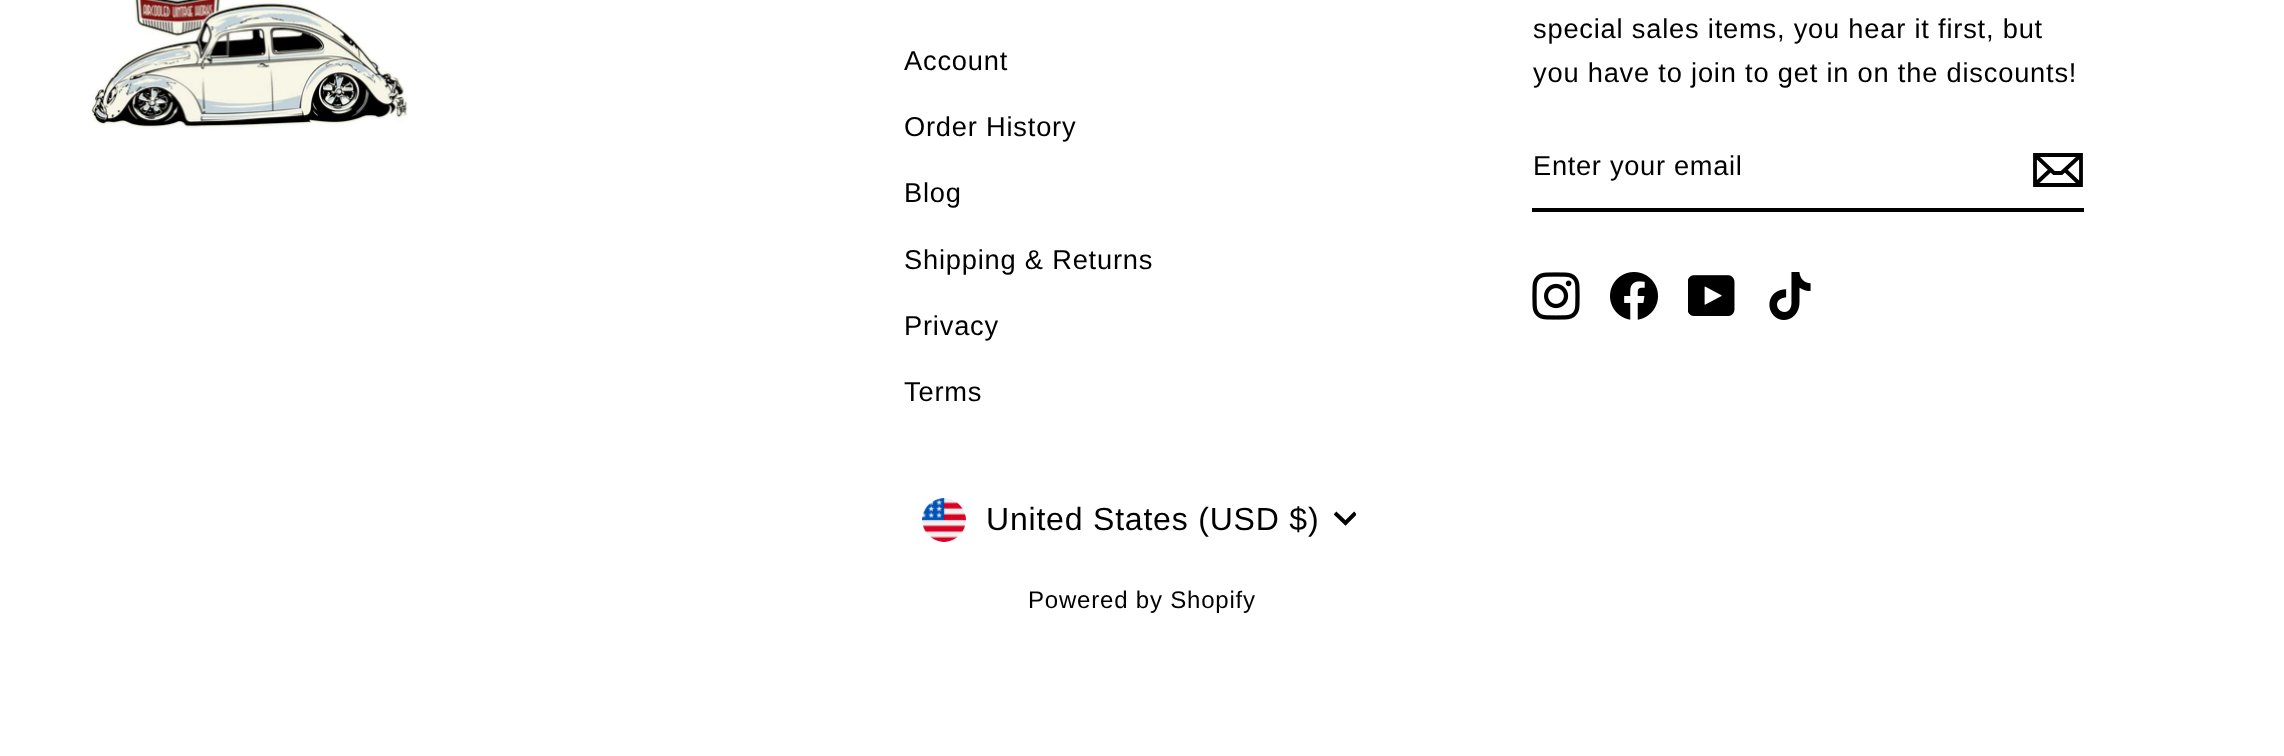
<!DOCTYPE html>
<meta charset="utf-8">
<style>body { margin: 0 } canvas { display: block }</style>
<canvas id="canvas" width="2284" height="756"></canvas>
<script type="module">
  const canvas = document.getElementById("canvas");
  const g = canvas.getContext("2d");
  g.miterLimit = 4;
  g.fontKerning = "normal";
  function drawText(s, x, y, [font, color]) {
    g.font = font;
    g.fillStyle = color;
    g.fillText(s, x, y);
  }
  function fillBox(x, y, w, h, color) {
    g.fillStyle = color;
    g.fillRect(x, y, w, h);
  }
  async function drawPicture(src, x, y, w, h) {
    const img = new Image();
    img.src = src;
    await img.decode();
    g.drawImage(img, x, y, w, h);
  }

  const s1 = ["27.25px Arimo", "#000000"];
  const s2 = ["32px Arimo", "#000000"];
  const s3 = ["24px Arimo", "#000000"];

  fillBox(0, 0, 2284, 756, "#FFFFFF");
  await drawPicture("pic1.png", 90, 0, 318, 129);
  g.letterSpacing = "0.8px";
  drawText("Account", 904, 70, s1);
  drawText("Order History", 904, 136, s1);
  drawText("Blog", 904, 202, s1);
  drawText("Shipping & Returns", 904, 269, s1);
  drawText("Privacy", 904, 335, s1);
  drawText("Terms", 904, 401, s1);
  drawText("special sales items, you hear it first, but", 1533, 38, s1);
  drawText("you have to join to get in on the discounts!", 1533, 82, s1);
  fillBox(1532, 208, 552, 4, "#000000");
  g.letterSpacing = "0.7px";
  drawText("Enter your email", 1533, 175, s1);
  g.beginPath();
  g.moveTo(2081, 185);
  g.lineTo(2035, 185);
  g.lineTo(2035, 155);
  g.lineTo(2081, 155);
  g.closePath();
  g.moveTo(2035, 155);
  g.lineTo(2054, 173);
  g.lineTo(2061.5, 173);
  g.lineTo(2081, 155);
  g.moveTo(2050.5, 170);
  g.lineTo(2035, 184.5);
  g.moveTo(2081, 185);
  g.lineTo(2065, 170);
  g.strokeStyle = "#000000";
  g.lineWidth = 3.8;
  g.stroke();
  await drawPicture("pic2.png", 1532, 272, 48, 48);
  await drawPicture("pic3.png", 1610, 272, 48, 48);
  await drawPicture("pic4.png", 1688, 275, 47, 41);
  await drawPicture("pic5.png", 1769, 272, 42, 48);
  await drawPicture("pic6.png", 922, 498, 44, 44);
  g.letterSpacing = "0.8px";
  drawText("United States (USD $)", 986, 530, s2);
  g.save();
  g.beginPath();
  g.rect(1334, 508, 22, 22);
  g.clip();
  g.beginPath();
  g.moveTo(1335, 513);
  g.lineTo(1345.5, 523);
  g.lineTo(1355.5, 513);
  g.lineWidth = 3.9;
  g.stroke();
  g.restore();
  drawText("Powered by Shopify", 1028, 608, s3);
</script>
